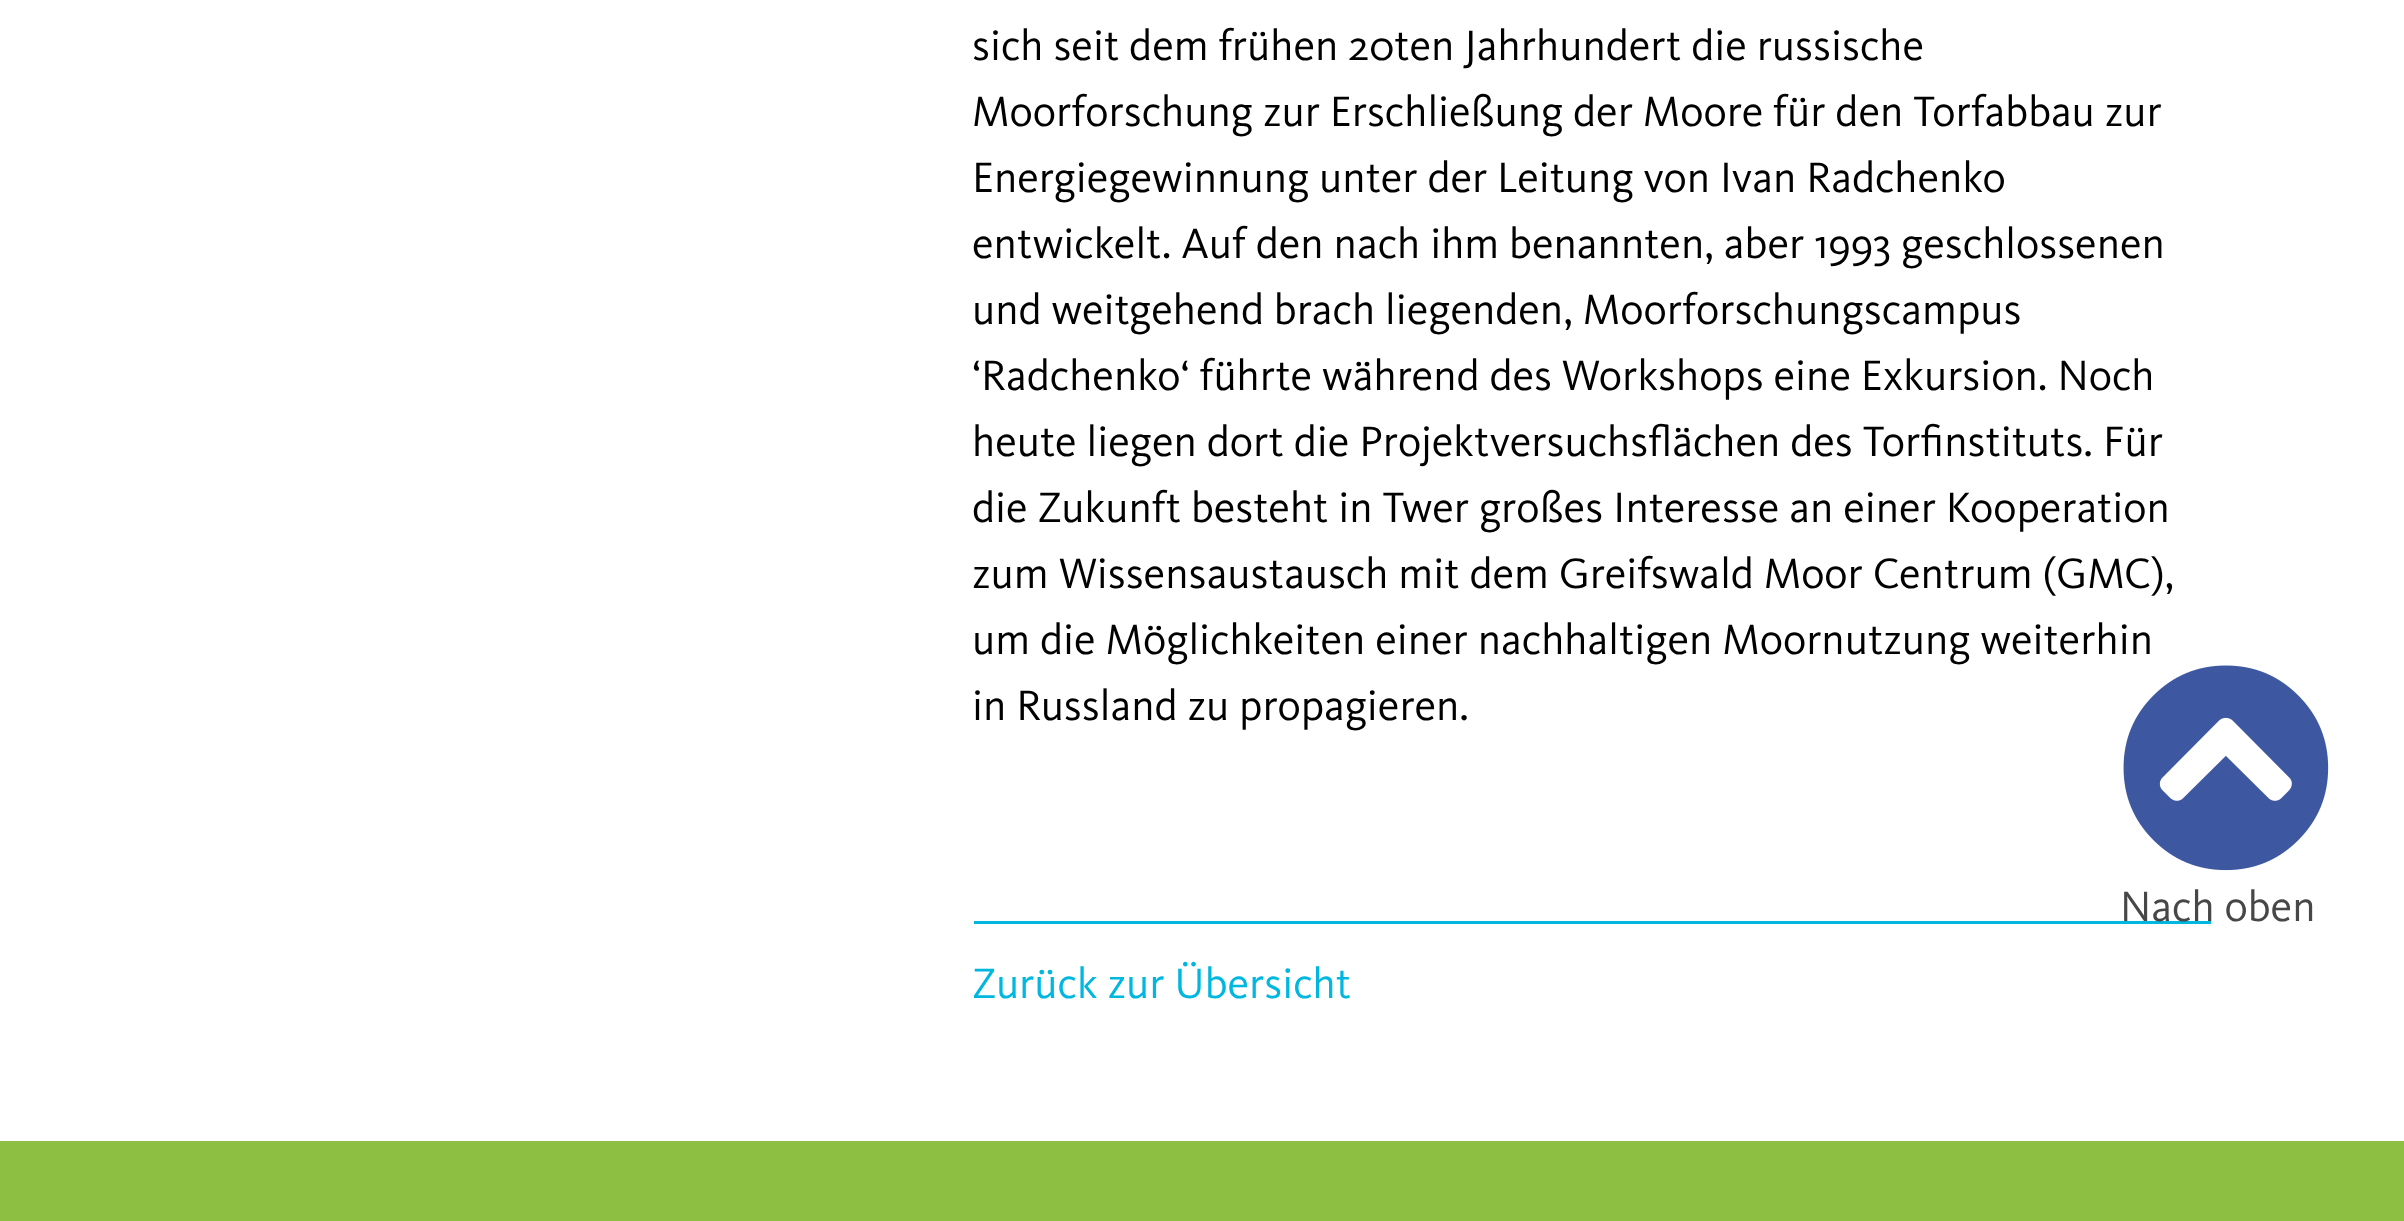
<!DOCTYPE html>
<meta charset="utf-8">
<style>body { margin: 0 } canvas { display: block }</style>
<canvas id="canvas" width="2404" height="1221"></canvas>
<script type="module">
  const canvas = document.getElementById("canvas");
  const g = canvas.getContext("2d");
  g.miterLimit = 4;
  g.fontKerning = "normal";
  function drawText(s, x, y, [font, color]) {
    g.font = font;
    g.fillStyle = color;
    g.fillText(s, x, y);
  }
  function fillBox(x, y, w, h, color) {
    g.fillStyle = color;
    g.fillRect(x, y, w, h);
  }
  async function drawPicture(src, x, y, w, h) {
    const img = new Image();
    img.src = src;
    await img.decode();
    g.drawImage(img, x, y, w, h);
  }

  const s1 = ["44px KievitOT", "#000000"];
  const s2 = ["44px KievitOT", "#00B7E0"];
  const s3 = ["44px KievitOT", "#474747"];

  fillBox(0, 0, 2404, 1221, "#FFFFFF");
  drawText("sich seit dem frühen 20ten Jahrhundert die russische", 972, 60, s1);
  drawText("Moorforschung zur Erschließung der Moore für den Torfabbau zur", 972, 126, s1);
  drawText("Energiegewinnung unter der Leitung von Ivan Radchenko", 972, 192, s1);
  drawText("entwickelt. Auf den nach ihm benannten, aber 1993 geschlossenen", 972, 258, s1);
  drawText("und weitgehend brach liegenden, Moorforschungscampus", 972, 324, s1);
  drawText("‘Radchenko‘ führte während des Workshops eine Exkursion. Noch", 972, 390, s1);
  drawText("heute liegen dort die Projektversuchsflächen des Torfinstituts. Für", 972, 456, s1);
  drawText("die Zukunft besteht in Twer großes Interesse an einer Kooperation", 972, 522, s1);
  drawText("zum Wissensaustausch mit dem Greifswald Moor Centrum (GMC),", 972, 588, s1);
  drawText("um die Möglichkeiten einer nachhaltigen Moornutzung weiterhin", 972, 654, s1);
  drawText("in Russland zu propagieren.", 972, 720, s1);
  fillBox(974, 921, 1237, 3, "#00B7E0");
  drawText("Zurück zur Übersicht", 972, 998, s2);
  fillBox(0, 1141, 2404, 80, "#8DBF43");
  await drawPicture("pic1.png", 2123, 665, 206, 206);
  drawText("Nach oben", 2120, 921, s3);
</script>
